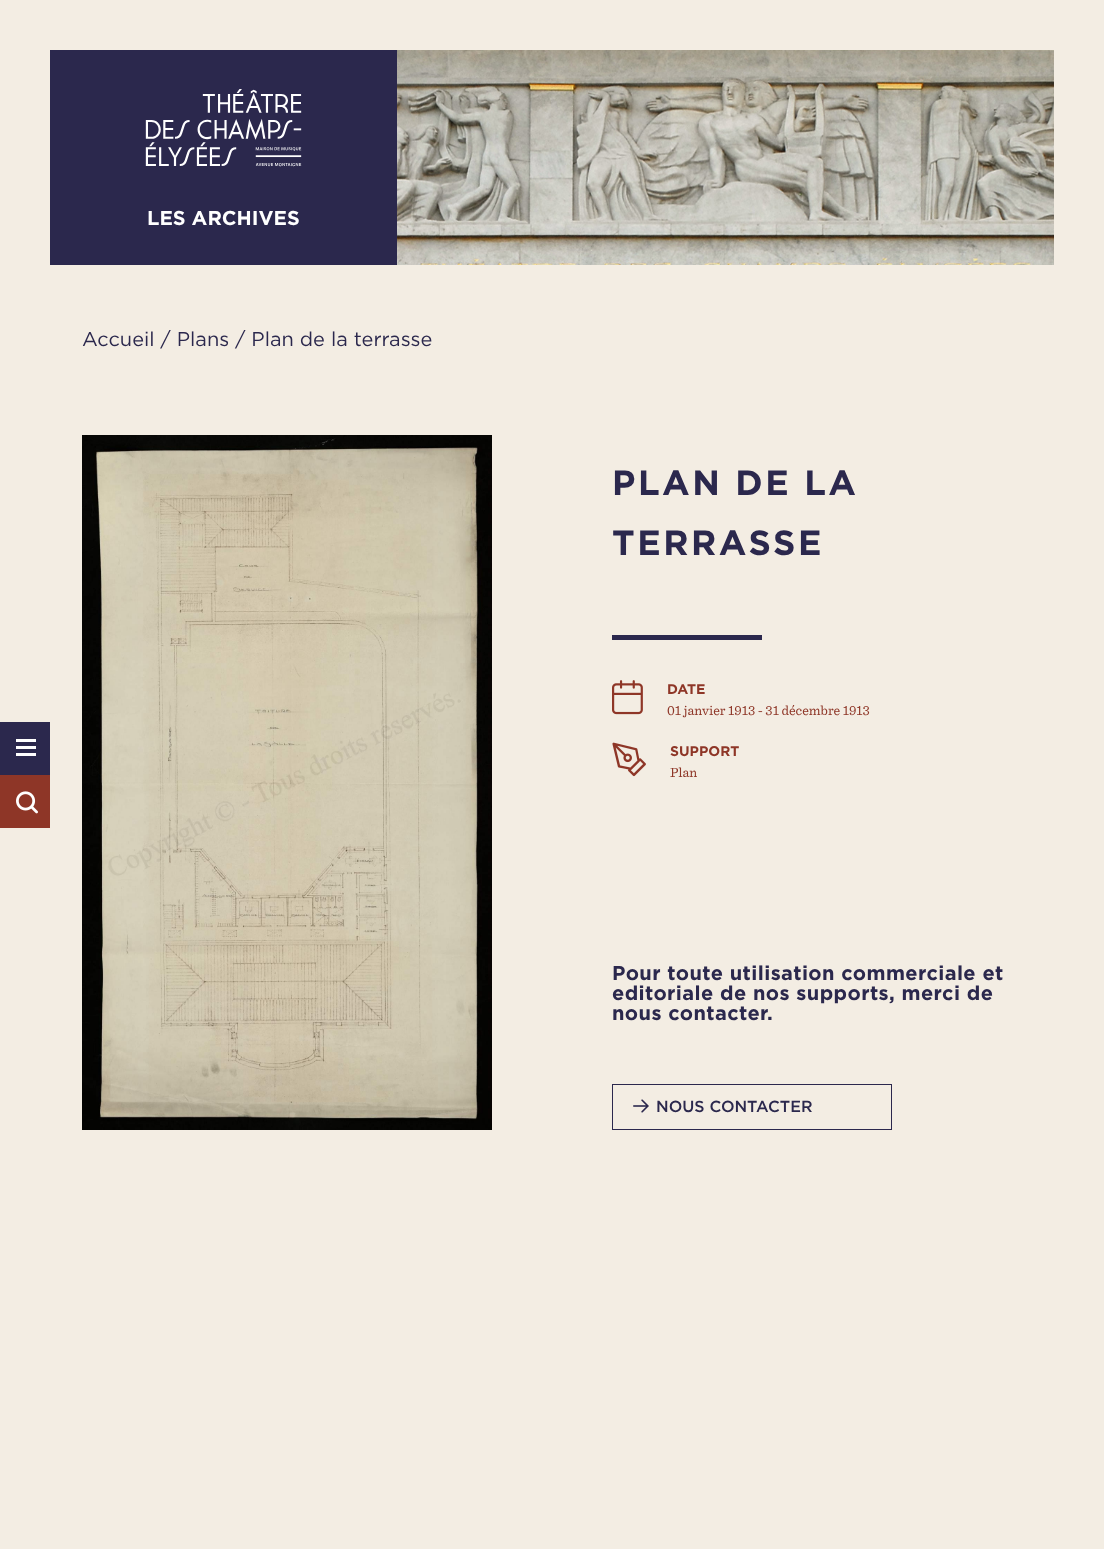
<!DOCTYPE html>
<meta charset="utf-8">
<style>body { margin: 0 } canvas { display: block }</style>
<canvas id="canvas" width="1104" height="1549"></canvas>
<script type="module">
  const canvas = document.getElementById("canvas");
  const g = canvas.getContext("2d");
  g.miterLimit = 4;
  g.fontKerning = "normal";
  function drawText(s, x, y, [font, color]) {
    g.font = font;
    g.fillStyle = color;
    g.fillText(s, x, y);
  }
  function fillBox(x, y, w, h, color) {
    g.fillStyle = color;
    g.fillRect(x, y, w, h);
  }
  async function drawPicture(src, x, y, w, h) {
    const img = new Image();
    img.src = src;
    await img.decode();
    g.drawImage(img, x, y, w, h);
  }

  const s1 = ["bold 20px Gotham", "#FFFFFF"];
  const s2 = ["20px Gotham", "#2B284D"];
  const s3 = ["bold 35px Gotham", "#2B284D"];
  const s4 = ["bold 14px Gotham", "#8E3627"];
  const s5 = ["14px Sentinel", "#8E3627"];
  const s6 = ["bold 20px Gotham", "#2B284D"];
  const s7 = ["500 16px Gotham", "#2B284D"];

  fillBox(0, 0, 1104, 1549, "#F3EDE3");
  fillBox(50, 50, 347, 215, "#2B284D");
  await drawPicture("pic1.png", 145, 89, 157, 78);
  drawText("LES ARCHIVES", 147, 225, s1);
  await drawPicture("pic2.png", 397, 50, 657, 215);
  fillBox(0, 722, 50, 53, "#2B284D");
  fillBox(16, 746, 20, 3, "#FFFFFF");
  fillBox(16, 739, 20, 3, "#FFFFFF");
  fillBox(16, 753, 20, 3, "#FFFFFF");
  fillBox(0, 775, 50, 53, "#8E3627");
  await drawPicture("pic3.png", 16, 791, 22, 23);
  drawText("Accueil / Plans / Plan de la terrasse", 82, 346, s2);
  await drawPicture("pic4.png", 82, 435, 410, 695);
  g.letterSpacing = "2.5px";
  drawText("PLAN DE LA", 612, 495, s3);
  drawText("TERRASSE", 612, 555, s3);
  fillBox(612, 635, 150, 5, "#2B284D");
  await drawPicture("pic5.png", 612, 680, 31, 35);
  g.letterSpacing = "0px";
  drawText("DATE", 667, 694, s4);
  drawText("01 janvier 1913 - 31 décembre 1913", 667, 715, s5);
  await drawPicture("pic6.png", 612, 742, 34, 35);
  drawText("SUPPORT", 670, 756, s4);
  drawText("Plan", 670, 777, s5);
  g.letterSpacing = "0.4px";
  drawText("Pour toute utilisation commerciale et", 612, 980, s6);
  drawText("editoriale de nos supports, merci de", 612, 1000, s6);
  drawText("nous contacter.", 612, 1020, s6);
  g.strokeStyle = "#2B284D";
  g.strokeRect(612.5, 1084.5, 279, 45);
  await drawPicture("pic7.png", 633, 1099, 16, 14);
  g.letterSpacing = "0px";
  drawText("NOUS CONTACTER", 656, 1112, s7);
</script>
